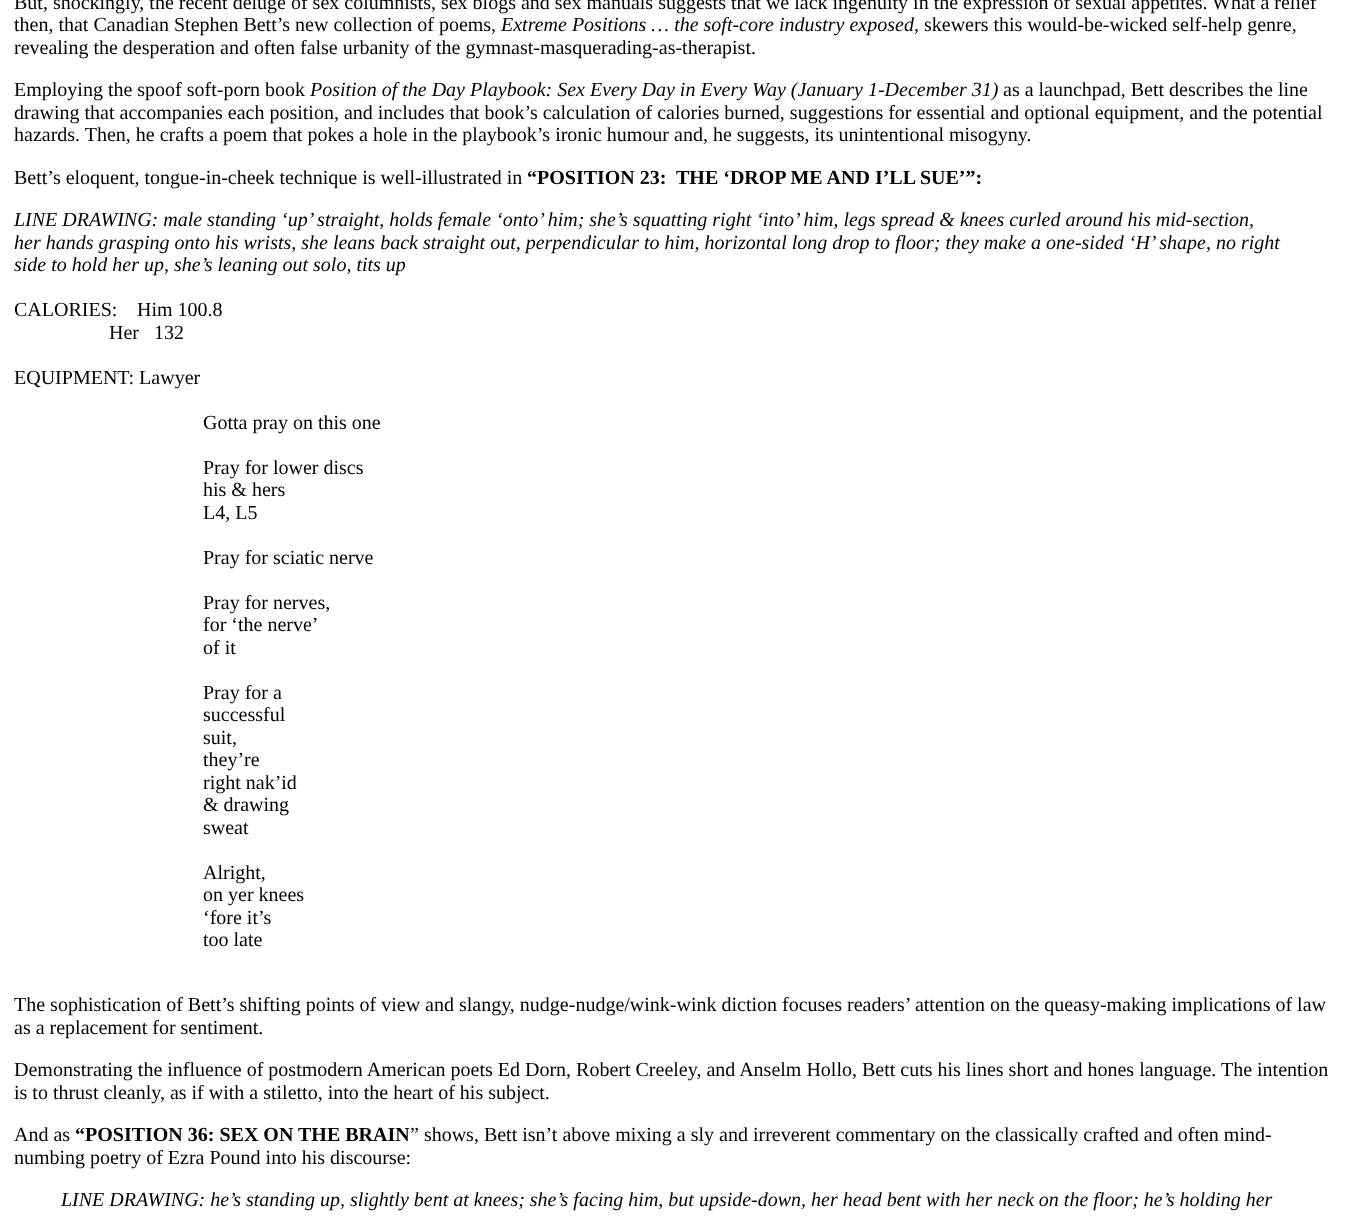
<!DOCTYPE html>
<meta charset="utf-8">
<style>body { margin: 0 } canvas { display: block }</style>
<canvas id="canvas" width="1345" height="1217"></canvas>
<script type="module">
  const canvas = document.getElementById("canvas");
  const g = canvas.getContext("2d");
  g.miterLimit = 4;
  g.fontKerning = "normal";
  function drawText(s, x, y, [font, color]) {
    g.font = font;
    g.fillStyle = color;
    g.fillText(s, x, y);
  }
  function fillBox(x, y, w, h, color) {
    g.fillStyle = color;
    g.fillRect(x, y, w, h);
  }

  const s1 = ["20px Liberation Serif", "#000000"];
  const s2 = ["italic 20px Liberation Serif", "#000000"];
  const s3 = ["bold 20px Liberation Serif", "#000000"];

  fillBox(0, 0, 1345, 1217, "#FFFFFF");
  drawText("But, shockingly, the recent deluge of sex columnists, sex blogs and sex manuals suggests that we lack ingenuity in the expression of sexual appetites. What a relief", 14, 9, s1);
  drawText("then, that Canadian Stephen Bett’s new collection of poems,", 14, 31, s1);
  drawText("Extreme Positions … the soft-core industry exposed", 501, 31, s2);
  drawText(", skewers this would-be-wicked self-help genre,", 914, 31, s1);
  drawText("revealing the desperation and often false urbanity of the gymnast-masquerading-as-therapist.", 14, 54, s1);
  drawText("Employing the spoof soft-porn book", 14, 96, s1);
  drawText("Position of the Day Playbook: Sex Every Day in Every Way (January 1-December 31)", 310, 96, s2);
  drawText("as a launchpad, Bett describes the line", 1003, 96, s1);
  drawText("drawing that accompanies each position, and includes that book’s calculation of calories burned, suggestions for essential and optional equipment, and the potential", 14, 119, s1);
  drawText("hazards. Then, he crafts a poem that pokes a hole in the playbook’s ironic humour and, he suggests, its unintentional misogyny.", 14, 141, s1);
  drawText("Bett’s eloquent, tongue-in-cheek technique is well-illustrated in", 14, 184, s1);
  drawText("“POSITION 23:", 527, 184, s3);
  drawText("THE ‘DROP ME AND I’LL SUE’”:", 676, 184, s3);
  drawText("LINE DRAWING: male standing ‘up’ straight, holds female ‘onto’ him; she’s squatting right ‘into’ him, legs spread & knees curled around his mid-section,", 14, 226, s2);
  drawText("her hands grasping onto his wrists, she leans back straight out, perpendicular to him, horizontal long drop to floor; they make a one-sided ‘H’ shape, no right", 14, 249, s2);
  drawText("side to hold her up, she’s leaning out solo, tits up", 14, 271, s2);
  drawText("CALORIES:", 14, 316, s1);
  drawText("Him 100.8", 137, 316, s1);
  drawText("Her", 109, 339, s1);
  drawText("132", 154, 339, s1);
  drawText("EQUIPMENT: Lawyer", 14, 384, s1);
  drawText("Gotta pray on this one", 203, 429, s1);
  drawText("Pray for lower discs", 203, 474, s1);
  drawText("his & hers", 203, 496, s1);
  drawText("L4, L5", 203, 519, s1);
  drawText("Pray for sciatic nerve", 203, 564, s1);
  drawText("Pray for nerves,", 203, 609, s1);
  drawText("for ‘the nerve’", 203, 631, s1);
  drawText("of it", 203, 654, s1);
  drawText("Pray for a", 203, 699, s1);
  drawText("successful", 203, 721, s1);
  drawText("suit,", 203, 744, s1);
  drawText("they’re", 203, 766, s1);
  drawText("right nak’id", 203, 789, s1);
  drawText("& drawing", 203, 811, s1);
  drawText("sweat", 203, 834, s1);
  drawText("Alright,", 203, 879, s1);
  drawText("on yer knees", 203, 901, s1);
  drawText("‘fore it’s", 203, 924, s1);
  drawText("too late", 203, 946, s1);
  drawText("The sophistication of Bett’s shifting points of view and slangy, nudge-nudge/wink-wink diction focuses readers’ attention on the queasy-making implications of law", 14, 1011, s1);
  drawText("as a replacement for sentiment.", 14, 1034, s1);
  drawText("Demonstrating the influence of postmodern American poets Ed Dorn, Robert Creeley, and Anselm Hollo, Bett cuts his lines short and hones language. The intention", 14, 1076, s1);
  drawText("is to thrust cleanly, as if with a stiletto, into the heart of his subject.", 14, 1099, s1);
  drawText("And as", 14, 1141, s1);
  drawText("“POSITION 36: SEX ON THE BRAIN", 75, 1141, s3);
  drawText("” shows, Bett isn’t above mixing a sly and irreverent commentary on the classically crafted and often mind-", 410, 1141, s1);
  drawText("numbing poetry of Ezra Pound into his discourse:", 14, 1164, s1);
  drawText("LINE DRAWING: he’s standing up, slightly bent at knees; she’s facing him, but upside-down, her head bent with her neck on the floor; he’s holding her", 61, 1206, s2);
</script>
